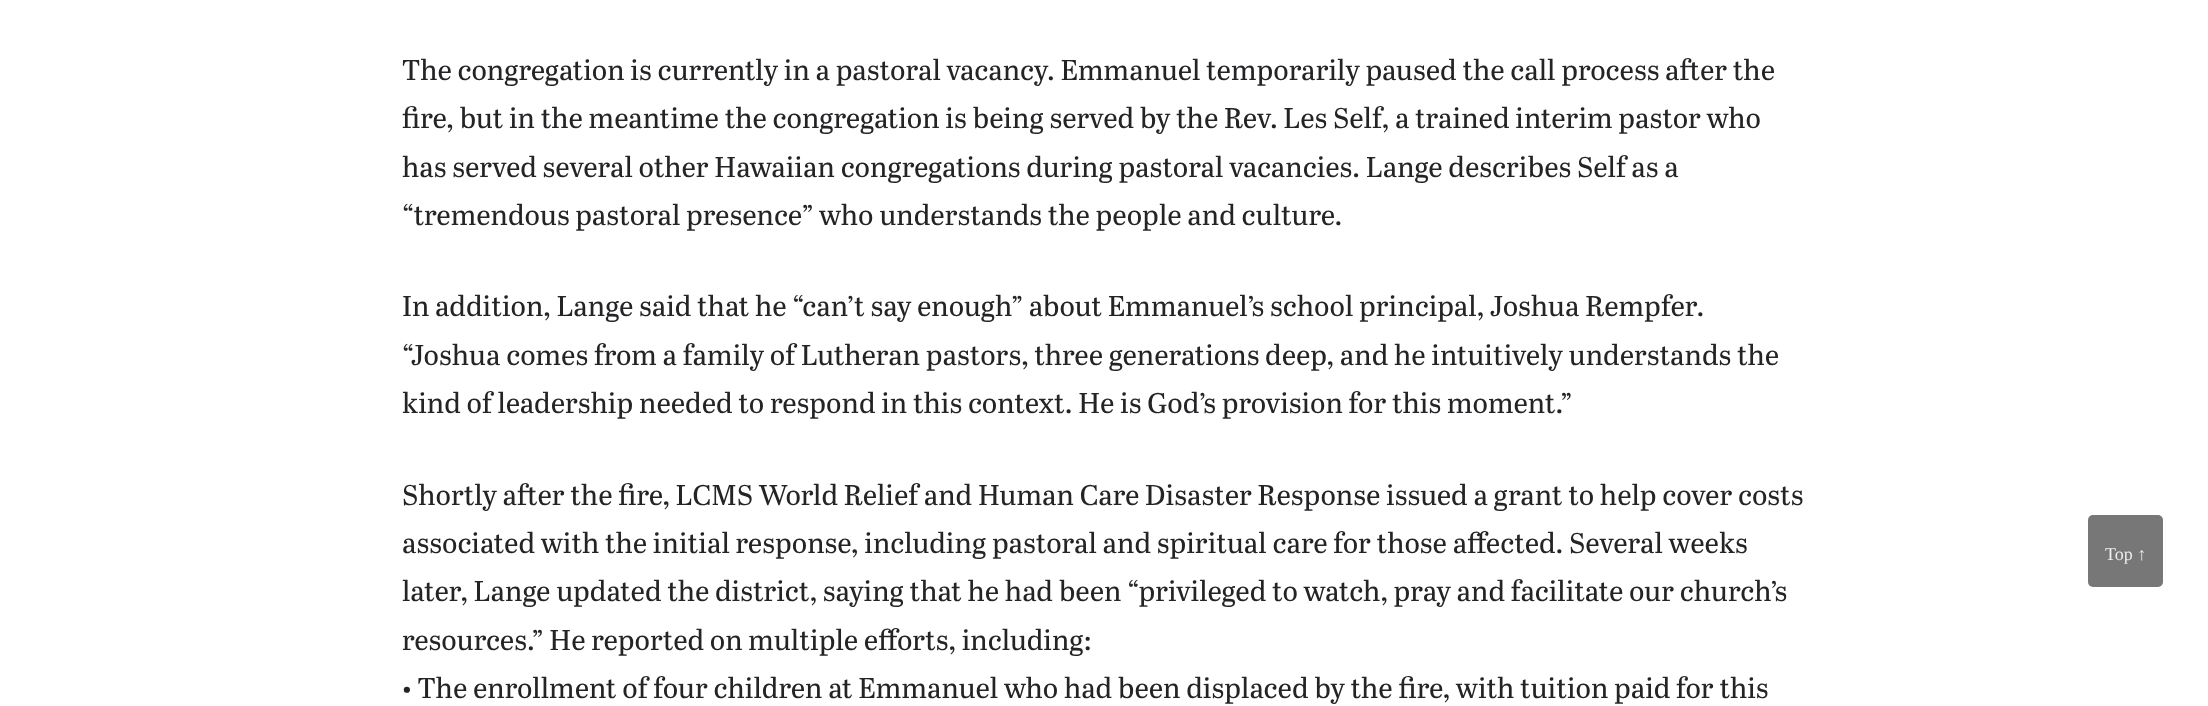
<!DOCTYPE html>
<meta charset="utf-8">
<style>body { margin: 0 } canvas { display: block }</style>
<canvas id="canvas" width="2208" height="706"></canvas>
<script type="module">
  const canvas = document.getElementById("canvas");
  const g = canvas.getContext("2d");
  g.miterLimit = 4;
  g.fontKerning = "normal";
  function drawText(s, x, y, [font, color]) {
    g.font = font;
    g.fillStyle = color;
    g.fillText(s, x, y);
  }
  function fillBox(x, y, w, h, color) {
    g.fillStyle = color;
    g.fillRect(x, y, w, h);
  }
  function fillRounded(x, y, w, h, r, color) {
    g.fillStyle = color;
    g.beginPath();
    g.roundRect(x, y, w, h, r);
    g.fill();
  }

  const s1 = ["28.5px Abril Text", "#242427"];
  const s2 = ["18px Liberation Serif", "#EEEEEE"];

  fillBox(0, 0, 2208, 706, "#FFFFFF");
  drawText("The congregation is currently in a pastoral vacancy. Emmanuel temporarily paused the call process after the", 402, 80, s1);
  drawText("fire, but in the meantime the congregation is being served by the Rev. Les Self, a trained interim pastor who", 402, 128, s1);
  drawText("has served several other Hawaiian congregations during pastoral vacancies. Lange describes Self as a", 402, 177, s1);
  drawText("“tremendous pastoral presence” who understands the people and culture.", 402, 225, s1);
  drawText("In addition, Lange said that he “can’t say enough” about Emmanuel’s school principal, Joshua Rempfer.", 402, 316, s1);
  drawText("“Joshua comes from a family of Lutheran pastors, three generations deep, and he intuitively understands the", 402, 365, s1);
  drawText("kind of leadership needed to respond in this context. He is God’s provision for this moment.”", 402, 413, s1);
  drawText("Shortly after the fire, LCMS World Relief and Human Care Disaster Response issued a grant to help cover costs", 402, 505, s1);
  drawText("associated with the initial response, including pastoral and spiritual care for those affected. Several weeks", 402, 553, s1);
  drawText("later, Lange updated the district, saying that he had been “privileged to watch, pray and facilitate our church’s", 402, 601, s1);
  drawText("resources.” He reported on multiple efforts, including:", 402, 650, s1);
  drawText("• The enrollment of four children at Emmanuel who had been displaced by the fire, with tuition paid for this", 402, 698, s1);
  fillRounded(2088, 515, 75, 72, 5, "#777777");
  drawText("Top ↑", 2105, 560, s2);
</script>
